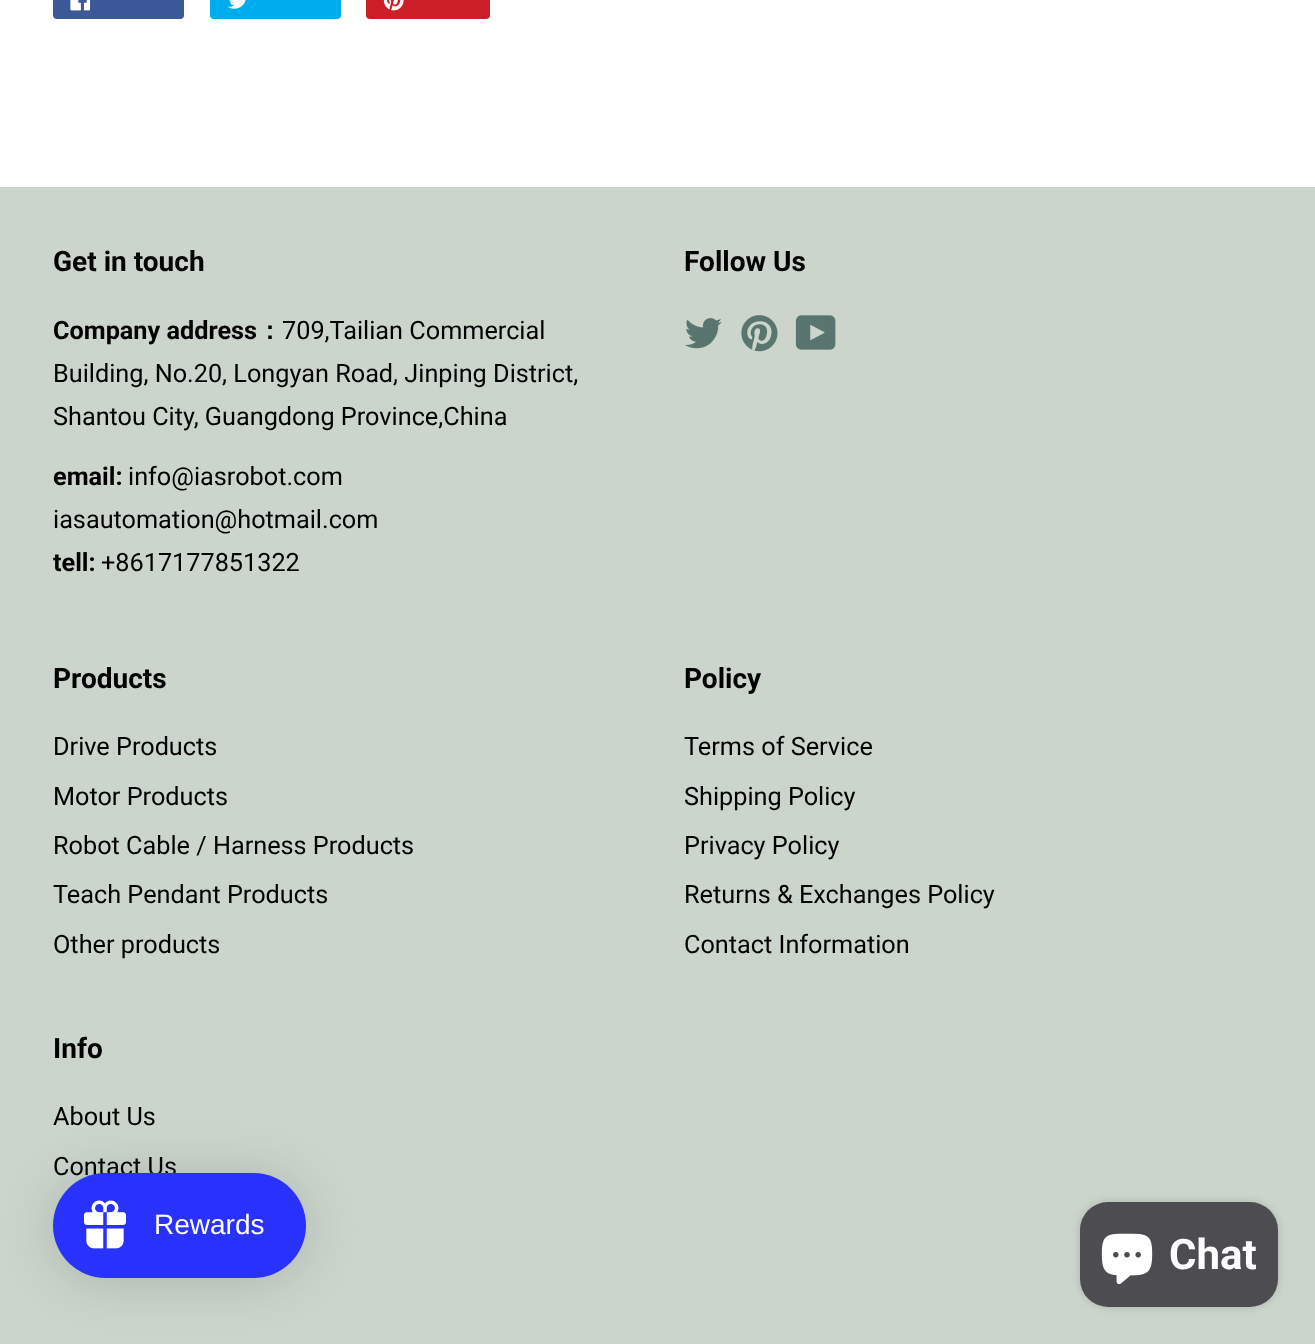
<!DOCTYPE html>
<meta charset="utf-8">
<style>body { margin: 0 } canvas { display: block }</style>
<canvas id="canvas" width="1315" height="1344"></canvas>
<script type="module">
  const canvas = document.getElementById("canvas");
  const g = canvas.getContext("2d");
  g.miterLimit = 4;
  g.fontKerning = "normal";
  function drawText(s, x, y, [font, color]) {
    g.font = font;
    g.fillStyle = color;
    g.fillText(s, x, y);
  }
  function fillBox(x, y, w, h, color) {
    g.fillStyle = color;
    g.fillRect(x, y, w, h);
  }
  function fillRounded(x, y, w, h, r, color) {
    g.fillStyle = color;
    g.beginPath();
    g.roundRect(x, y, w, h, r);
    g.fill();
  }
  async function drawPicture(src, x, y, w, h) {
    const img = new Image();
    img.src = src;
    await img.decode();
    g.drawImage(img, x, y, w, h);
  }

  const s1 = ["bold 28px Roboto", "#000000"];
  const s2 = ["bold 25.25px Roboto", "#000000"];
  const s3 = ["bold 25.25px WenQuanYi Zen Hei", "#000000"];
  const s4 = ["25.25px Roboto", "#000000"];
  const s5 = ["28px Liberation Sans", "#FFFFFF"];
  const s6 = ["bold 42px Roboto", "#FFFFFF"];

  fillBox(0, 0, 1315, 1344, "#FFFFFF");
  fillRounded(53, -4, 131, 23, 4, "#3B5998");
  await drawPicture("pic1.png", 70, 0, 21, 11);
  fillRounded(210, -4, 131, 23, 4, "#00ACED");
  await drawPicture("pic2.png", 228, 0, 18, 9);
  fillRounded(366, -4, 124, 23, 4, "#CB2027");
  await drawPicture("pic3.png", 383, 0, 21, 11);
  fillBox(0, 187, 1315, 1157, "#CBD5CC");
  drawText("Get in touch", 53, 271, s1);
  drawText("Company address", 53, 339, s2);
  drawText("：", 257, 339, s3);
  drawText("709,Tailian Commercial", 282, 339, s4);
  drawText("Building, No.20, Longyan Road, Jinping District,", 53, 382, s4);
  drawText("Shantou City, Guangdong Province,China", 53, 425, s4);
  drawText("email:", 53, 485, s2);
  drawText("info@iasrobot.com", 128, 485, s4);
  drawText("iasautomation@hotmail.com", 53, 528, s4);
  drawText("tell:", 53, 571, s2);
  drawText("+8617177851322", 101, 571, s4);
  drawText("Follow Us", 684, 271, s1);
  await drawPicture("pic4.png", 685, 318, 37, 31);
  await drawPicture("pic5.png", 741, 315, 37, 37);
  await drawPicture("pic6.png", 795, 315, 41, 35);
  drawText("Products", 53, 688, s1);
  drawText("Drive Products", 53, 755, s4);
  drawText("Motor Products", 53, 805, s4);
  drawText("Robot Cable / Harness Products", 53, 854, s4);
  drawText("Teach Pendant Products", 53, 903, s4);
  drawText("Other products", 53, 953, s4);
  drawText("Policy", 684, 688, s1);
  drawText("Terms of Service", 684, 755, s4);
  drawText("Shipping Policy", 684, 805, s4);
  drawText("Privacy Policy", 684, 854, s4);
  drawText("Returns & Exchanges Policy", 684, 903, s4);
  drawText("Contact Information", 684, 953, s4);
  drawText("Info", 53, 1058, s1);
  drawText("About Us", 53, 1125, s4);
  drawText("Contact Us", 53, 1175, s4);
  g.fillStyle = "rgba(0, 0, 0, 0.15)";
  g.filter = "blur(26px)";
  g.beginPath();
  g.roundRect(53, 1176, 253, 105, 52.5);
  g.fill();
  g.filter = "none";
  fillRounded(53, 1173, 253, 105, 52.5, "#2932FC");
  await drawPicture("pic7.png", 84, 1200, 42, 49);
  drawText("Rewards", 154, 1234, s5);
  g.fillStyle = "rgba(0, 0, 0, 0.15)";
  g.filter = "blur(4.5px)";
  g.beginPath();
  g.roundRect(1080, 1202, 198, 105, 28);
  g.fill();
  g.filter = "none";
  fillRounded(1080, 1202, 198, 105, 28, "#4D4D51");
  await drawPicture("pic8.png", 1101, 1233, 52, 52);
  drawText("Chat", 1169, 1269, s6);
</script>
